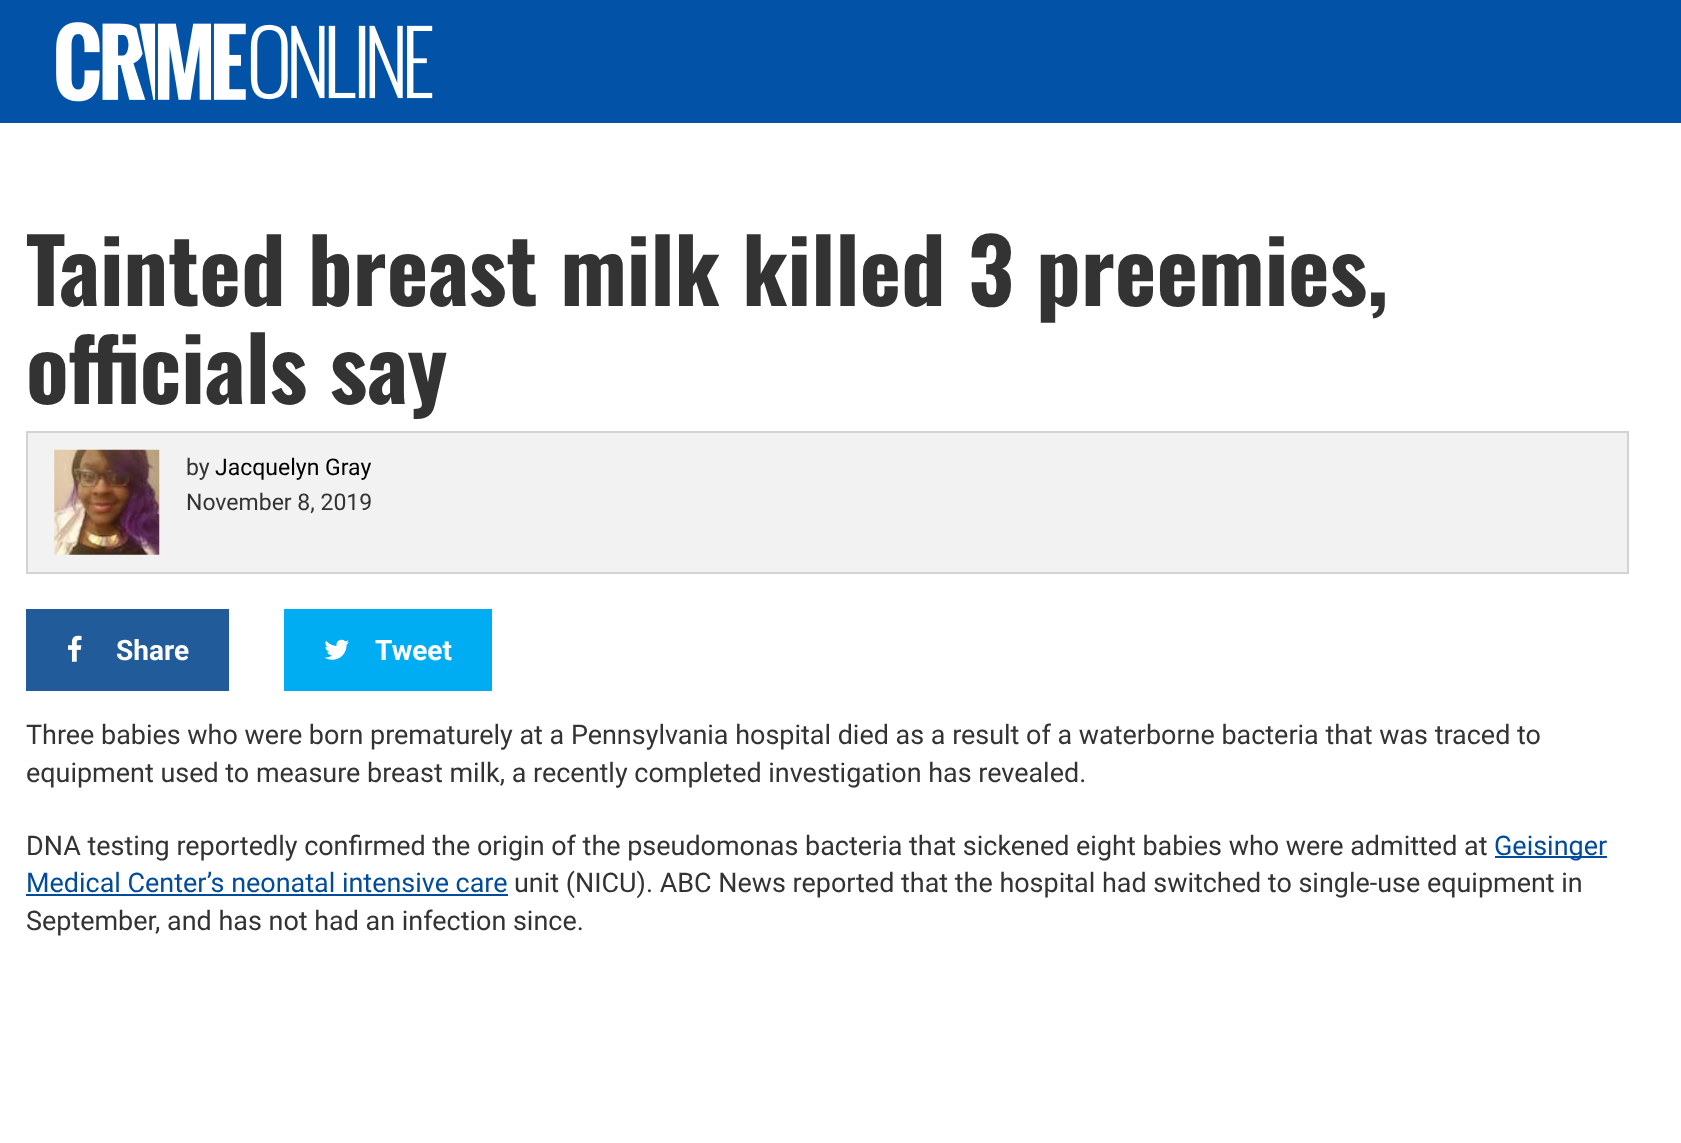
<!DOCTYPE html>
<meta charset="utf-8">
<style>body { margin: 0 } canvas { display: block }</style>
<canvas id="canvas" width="1681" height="1143"></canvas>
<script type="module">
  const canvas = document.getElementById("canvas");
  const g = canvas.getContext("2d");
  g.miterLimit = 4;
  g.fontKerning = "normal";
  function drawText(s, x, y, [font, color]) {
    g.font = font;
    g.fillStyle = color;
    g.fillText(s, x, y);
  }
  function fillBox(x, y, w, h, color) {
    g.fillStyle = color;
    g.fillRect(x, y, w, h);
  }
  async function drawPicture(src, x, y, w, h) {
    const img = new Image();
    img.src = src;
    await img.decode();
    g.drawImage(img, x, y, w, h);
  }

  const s1 = ["bold 88.5px Oswald", "#333333"];
  const s2 = ["23px Roboto", "#333333"];
  const s3 = ["23px Roboto", "#000000"];
  const s4 = ["bold 28px Roboto", "#FFFFFF"];
  const s5 = ["26.95px Roboto", "#333333"];
  const s6 = ["26.95px Roboto", "#004C9B"];

  fillBox(0, 0, 1681, 1143, "#FFFFFF");
  fillBox(0, 0, 1681, 123, "#0253A8");
  await drawPicture("pic1.png", 56, 22, 377, 80);
  drawText("Tainted breast milk killed 3 preemies,", 26, 306, s1);
  drawText("officials say", 26, 404, s1);
  g.fillStyle = "#F2F2F2";
  g.beginPath();
  g.rect(27, 432, 1601, 141);
  g.fill();
  g.strokeStyle = "#D2D3D4";
  g.lineWidth = 2;
  g.stroke();
  await drawPicture("pic2.png", 54, 449, 106, 106);
  drawText("by", 186, 475, s2);
  drawText("Jacquelyn Gray", 215, 475, s3);
  drawText("November 8, 2019", 186, 510, s2);
  fillBox(26, 609, 203, 82, "#225B99");
  await drawPicture("pic3.png", 68, 635, 14, 27);
  drawText("Share", 116, 660, s4);
  fillBox(284, 609, 208, 82, "#00ADF2");
  await drawPicture("pic4.png", 324, 639, 25, 21);
  drawText("Tweet", 375, 660, s4);
  drawText("Three babies who were born prematurely at a Pennsylvania hospital died as a result of a waterborne bacteria that was traced to", 26, 744, s5);
  drawText("equipment used to measure breast milk, a recently completed investigation has revealed.", 26, 782, s5);
  drawText("DNA testing reportedly confirmed the origin of the pseudomonas bacteria that sickened eight babies who were admitted at", 26, 855, s5);
  fillBox(1495, 856, 112, 2, "#004C9B");
  drawText("Geisinger", 1494, 855, s6);
  drawText("Medical Center’s neonatal intensive care", 26, 892, s6);
  fillBox(26, 894, 482, 2, "#004C9B");
  drawText("unit (NICU). ABC News reported that the hospital had switched to single-use equipment in", 514, 892, s5);
  drawText("September, and has not had an infection since.", 26, 930, s5);
</script>
